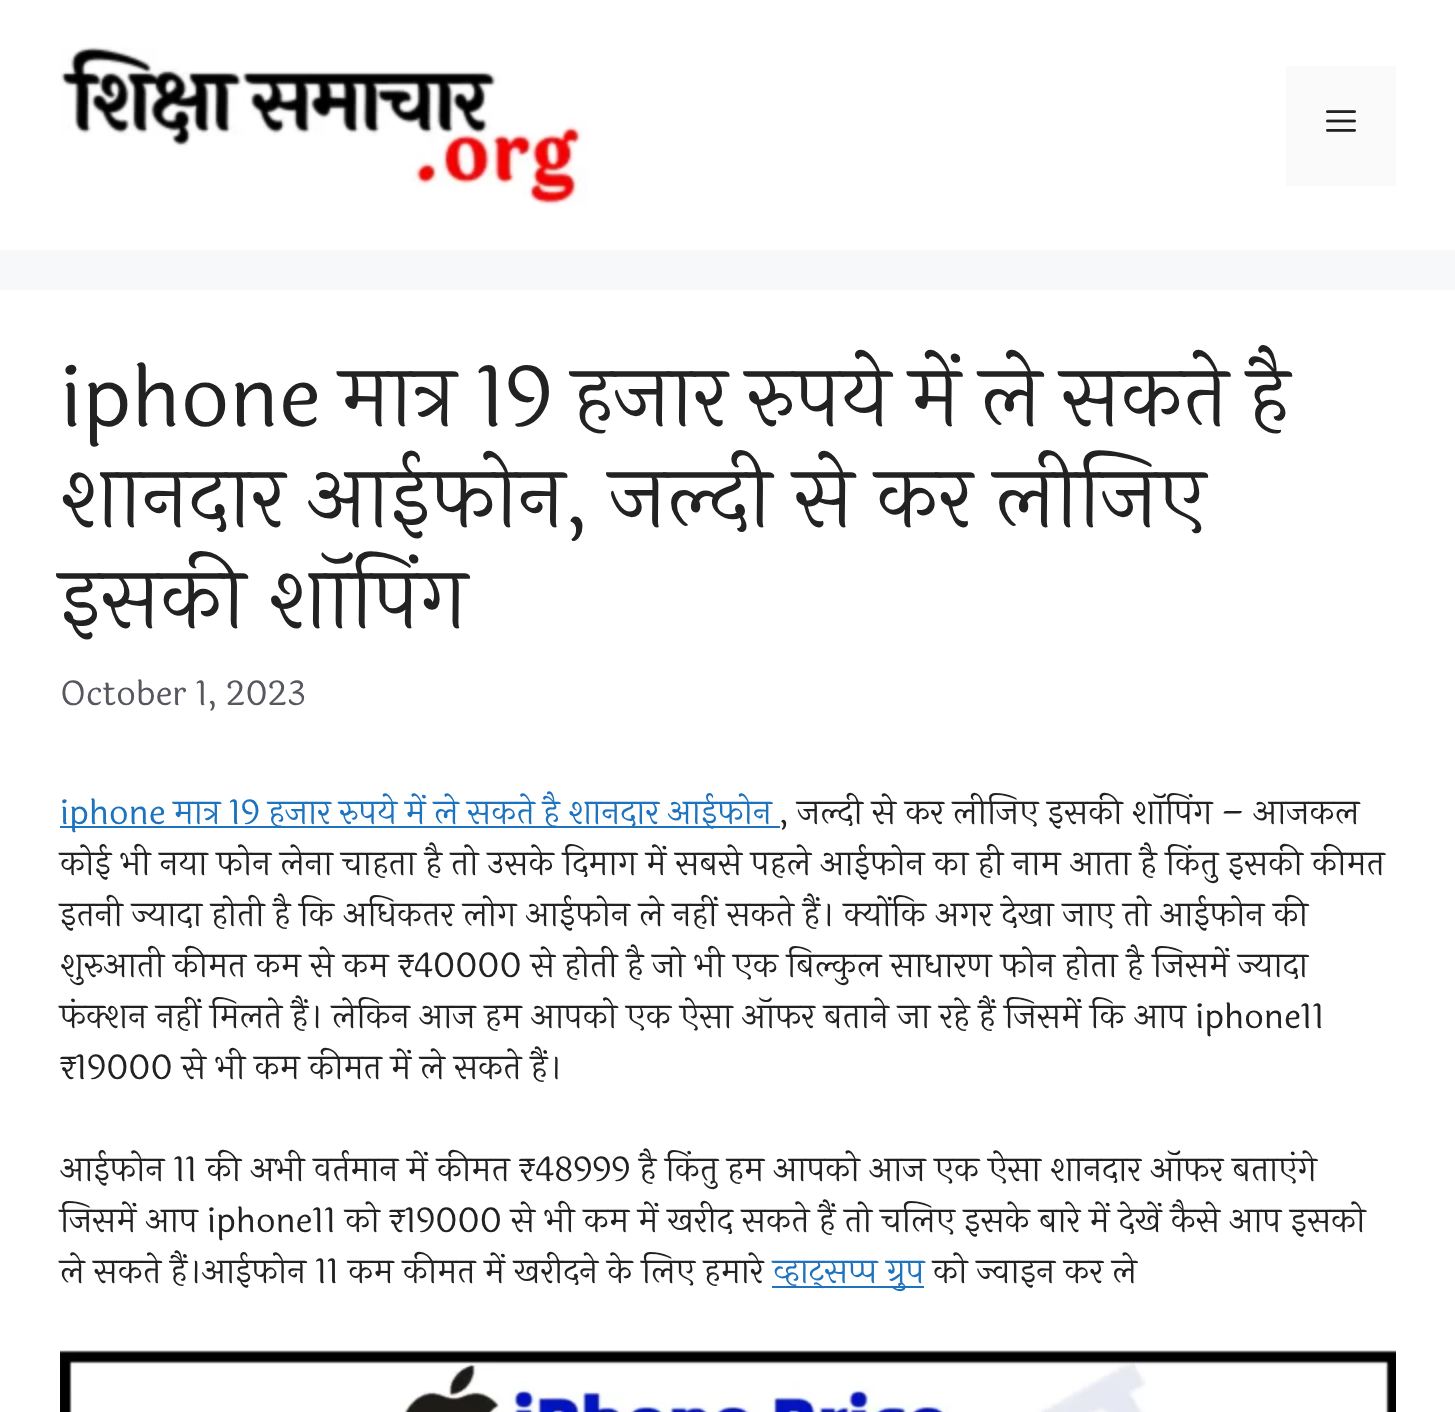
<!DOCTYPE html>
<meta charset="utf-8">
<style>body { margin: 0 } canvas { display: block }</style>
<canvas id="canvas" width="1455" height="1412"></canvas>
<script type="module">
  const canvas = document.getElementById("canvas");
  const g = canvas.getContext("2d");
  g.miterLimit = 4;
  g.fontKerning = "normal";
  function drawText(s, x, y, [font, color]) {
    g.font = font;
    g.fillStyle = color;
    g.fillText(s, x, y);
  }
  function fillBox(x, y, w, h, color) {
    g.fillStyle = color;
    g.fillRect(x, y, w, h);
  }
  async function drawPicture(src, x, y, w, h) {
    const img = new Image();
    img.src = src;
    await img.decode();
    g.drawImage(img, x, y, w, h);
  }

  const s1 = ["84px Laila", "#222222"];
  const s2 = ["34px Laila", "#575760"];
  const s3 = ["34px Laila", "#1E73BE"];
  const s4 = ["34px Laila", "#222222"];

  fillBox(0, 0, 1455, 1412, "#F7F8F9");
  fillBox(0, 0, 1455, 250, "#FFFFFF");
  await drawPicture("pic1.png", 60, 47, 528, 159);
  fillBox(1286, 66, 110, 120, "#FAFAFA");
  await drawPicture("pic2.png", 1326, 110, 30, 22);
  fillBox(0, 290, 1455, 1122, "#FFFFFF");
  g.wordSpacing = "-2.5px";
  drawText("iphone मात्र 19 हजार रुपये में ले सकते है", 60, 426, s1);
  g.wordSpacing = "0px";
  drawText("शानदार आईफोन, जल्दी से कर लीजिए", 60, 527, s1);
  drawText("इसकी शॉपिंग", 60, 628, s1);
  drawText("October 1, 2023", 60, 705, s2);
  fillBox(60, 826, 720, 2, "#1E73BE");
  g.wordSpacing = "-0.75px";
  drawText("iphone मात्र 19 हजार रुपये में ले सकते है शानदार आईफोन", 60, 824, s3);
  g.wordSpacing = "0px";
  drawText(", जल्दी से कर लीजिए इसकी शॉपिंग – आजकल", 779, 824, s4);
  drawText("कोई भी नया फोन लेना चाहता है तो उसके दिमाग में सबसे पहले आईफोन का ही नाम आता है किंतु इसकी कीमत", 60, 875, s4);
  drawText("इतनी ज्यादा होती है कि अधिकतर लोग आईफोन ले नहीं सकते हैं। क्योंकि अगर देखा जाए तो आईफोन की", 60, 926, s4);
  drawText("शुरुआती कीमत कम से कम ₹40000 से होती है जो भी एक बिल्कुल साधारण फोन होता है जिसमें ज्यादा", 60, 977, s4);
  drawText("फंक्शन नहीं मिलते हैं। लेकिन आज हम आपको एक ऐसा ऑफर बताने जा रहे हैं जिसमें कि आप iphone11", 60, 1028, s4);
  drawText("₹19000 से भी कम कीमत में ले सकते हैं।", 60, 1079, s4);
  drawText("आईफोन 11 की अभी वर्तमान में कीमत ₹48999 है किंतु हम आपको आज एक ऐसा शानदार ऑफर बताएंगे", 60, 1181, s4);
  drawText("जिसमें आप iphone11 को ₹19000 से भी कम में खरीद सकते हैं तो चलिए इसके बारे में देखें कैसे आप इसको", 60, 1232, s4);
  drawText("ले सकते हैं।आईफोन 11 कम कीमत में खरीदने के लिए हमारे", 60, 1283, s4);
  fillBox(772, 1286, 152, 2, "#1E73BE");
  drawText("व्हाट्सप्प ग्रुप", 773, 1283, s3);
  drawText("को ज्वाइन कर ले", 933, 1283, s4);
  await drawPicture("pic3.png", 60, 1350, 1336, 62);
</script>
